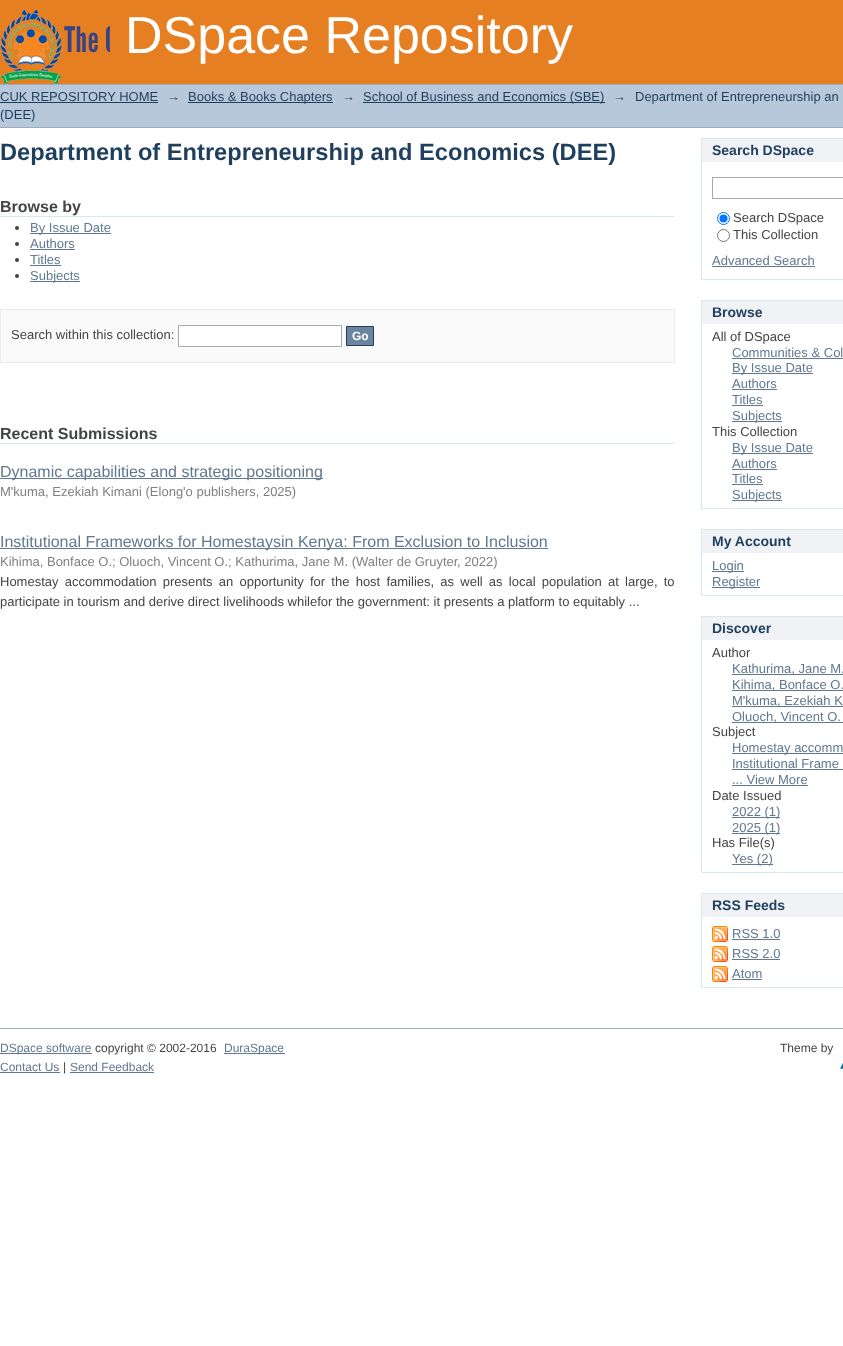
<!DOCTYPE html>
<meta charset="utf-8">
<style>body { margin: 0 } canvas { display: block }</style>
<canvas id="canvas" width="843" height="1346"></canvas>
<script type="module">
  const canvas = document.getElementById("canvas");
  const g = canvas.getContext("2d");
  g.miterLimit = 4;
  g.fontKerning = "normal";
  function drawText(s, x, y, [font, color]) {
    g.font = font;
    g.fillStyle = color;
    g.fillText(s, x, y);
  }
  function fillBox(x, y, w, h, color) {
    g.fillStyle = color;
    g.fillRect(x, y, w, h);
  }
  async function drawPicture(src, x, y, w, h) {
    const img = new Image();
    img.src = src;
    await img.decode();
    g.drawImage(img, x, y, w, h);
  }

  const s1 = ["52px Liberation Sans", "#FFFFFF"];
  const s2 = ["13px Liberation Sans", "#1F3F5E"];
  const s3 = ["bold 23.65px Liberation Sans", "#1F3F5E"];
  const s4 = ["bold 16px Liberation Sans", "#444444"];
  const s5 = ["13px Liberation Sans", "#607890"];
  const s6 = ["13px Liberation Sans", "#444444"];
  const s7 = ["bold 12px Liberation Sans", "#FFFFFF"];
  const s8 = ["16px Liberation Sans", "#607890"];
  const s9 = ["13px Liberation Sans", "#808080"];
  const s10 = ["bold 14px Liberation Sans", "#1F3F5E"];
  const s11 = ["12px Liberation Sans", "#607890"];
  const s12 = ["12px Liberation Sans", "#444444"];

  fillBox(0, 0, 843, 1346, "#FFFFFF");
  fillBox(0, 0, 843, 84, "#E67E22");
  await drawPicture("pic1.png", 0, 10, 110, 74);
  drawText("DSpace Repository", 125, 53, s1);
  fillBox(0, 85, 843, 42, "#B6C8D9");
  fillBox(0, 84, 843, 1, "#9CACBA");
  fillBox(0, 127, 843, 1, "#9CACBA");
  drawText("CUK REPOSITORY HOME", 0, 101, s2);
  fillBox(0, 102, 158, 1, "#1F3F5E");
  drawText("→", 167, 101, s2);
  fillBox(188, 102, 145, 1, "#1F3F5E");
  drawText("Books & Books Chapters", 188, 101, s2);
  drawText("→", 342, 101, s2);
  fillBox(363, 102, 242, 1, "#1F3F5E");
  drawText("School of Business and Economics (SBE)", 363, 101, s2);
  drawText("→", 613, 101, s2);
  drawText("Department of Entrepreneurship an", 635, 101, s2);
  drawText("(DEE)", 0, 119, s2);
  drawText("Department of Entrepreneurship and Economics (DEE)", 0, 160, s3);
  fillBox(0, 216, 675, 1, "#D8E8EB");
  drawText("Browse by", 0, 212, s4);
  g.beginPath();
  g.arc(17, 228, 2, 0, Math.PI * 2);
  g.fill();
  fillBox(30, 233, 81, 1, "#607890");
  drawText("By Issue Date", 30, 232, s5);
  g.fillStyle = "#444444";
  g.beginPath();
  g.arc(17, 244, 2, 0, Math.PI * 2);
  g.fill();
  drawText("Authors", 30, 248, s5);
  fillBox(30, 249, 45, 1, "#607890");
  g.fillStyle = "#444444";
  g.beginPath();
  g.arc(17, 260, 2, 0, Math.PI * 2);
  g.fill();
  drawText("Titles", 30, 264, s5);
  fillBox(30, 265, 31, 1, "#607890");
  g.fillStyle = "#444444";
  g.beginPath();
  g.arc(17, 276, 2, 0, Math.PI * 2);
  g.fill();
  fillBox(30, 281, 50, 1, "#607890");
  drawText("Subjects", 30, 280, s5);
  g.fillStyle = "#FAFAFA";
  g.beginPath();
  g.rect(0.5, 309.5, 674, 53);
  g.fill();
  g.strokeStyle = "#EBEBEB";
  g.stroke();
  drawText("Search within this collection:", 11, 339, s6);
  g.fillStyle = "#FFFFFF";
  g.beginPath();
  g.rect(178.5, 325.5, 163, 21);
  g.fill();
  g.strokeStyle = "#AAAAAA";
  g.stroke();
  g.fillStyle = "#6D859C";
  g.beginPath();
  g.rect(346.5, 326.5, 27, 19);
  g.fill();
  g.strokeStyle = "#1F3F5E";
  g.stroke();
  drawText("Go", 352, 340, s7);
  fillBox(0, 443, 675, 1, "#D8E8EB");
  drawText("Recent Submissions", 0, 439, s4);
  fillBox(0, 478, 323, 1, "#607890");
  drawText("Dynamic capabilities and strategic positioning", 0, 477, s8);
  drawText("M'kuma, Ezekiah Kimani (Elong'o publishers, 2025)", 0, 496, s9);
  fillBox(0, 548, 548, 1, "#607890");
  drawText("Institutional Frameworks for Homestaysin Kenya: From Exclusion to Inclusion", 0, 547, s8);
  drawText("Kihima, Bonface O.; Oluoch, Vincent O.; Kathurima, Jane M. (", 0, 566, s9);
  drawText("Walter de Gruyter", 356, 566, s9);
  drawText(", 2022)", 457, 566, s9);
  g.wordSpacing = "2.6px";
  drawText("Homestay accommodation presents an opportunity for the host families, as well as local population at large, to", 0, 586, s6);
  g.wordSpacing = "0px";
  drawText("participate in tourism and derive direct livelihoods whilefor the government: it presents a platform to equitably ...", 0, 606, s6);
  fillBox(702, 139, 141, 23, "#F0F2F5");
  fillBox(701, 138, 142, 1, "#D8E8EB");
  fillBox(701, 138, 1, 24, "#D8E8EB");
  drawText("Search DSpace", 712, 155, s10);
  fillBox(701, 279, 142, 1, "#D8E8EB");
  fillBox(701, 162, 1, 118, "#D8E8EB");
  g.strokeStyle = "#AAAAAA";
  g.strokeRect(712.5, 177.5, 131, 21);
  g.beginPath();
  g.arc(723.5, 218.5, 6, 0, Math.PI * 2);
  g.strokeStyle = "#0075FF";
  g.stroke();
  g.fillStyle = "#0075FF";
  g.beginPath();
  g.arc(723.5, 218.5, 4, 0, Math.PI * 2);
  g.fill();
  drawText("Search DSpace", 733, 222, s6);
  g.beginPath();
  g.arc(723.5, 235.5, 6, 0, Math.PI * 2);
  g.strokeStyle = "#767676";
  g.stroke();
  drawText("This Collection", 733, 239, s6);
  drawText("Advanced Search", 712, 265, s5);
  fillBox(712, 266, 103, 1, "#607890");
  fillBox(702, 301, 141, 23, "#F0F2F5");
  fillBox(701, 300, 142, 1, "#D8E8EB");
  fillBox(701, 300, 1, 24, "#D8E8EB");
  drawText("Browse", 712, 317, s10);
  fillBox(701, 508, 142, 1, "#D8E8EB");
  fillBox(701, 324, 1, 185, "#D8E8EB");
  drawText("All of DSpace", 712, 341, s6);
  drawText("Communities & Col", 732, 357, s5);
  fillBox(732, 358, 111, 1, "#607890");
  fillBox(732, 373, 81, 1, "#607890");
  drawText("By Issue Date", 732, 372, s5);
  drawText("Authors", 732, 388, s5);
  fillBox(732, 389, 45, 1, "#607890");
  drawText("Titles", 732, 404, s5);
  fillBox(732, 405, 31, 1, "#607890");
  fillBox(732, 421, 50, 1, "#607890");
  drawText("Subjects", 732, 420, s5);
  drawText("This Collection", 712, 436, s6);
  fillBox(732, 453, 81, 1, "#607890");
  drawText("By Issue Date", 732, 452, s5);
  drawText("Authors", 732, 468, s5);
  fillBox(732, 469, 45, 1, "#607890");
  drawText("Titles", 732, 483, s5);
  fillBox(732, 484, 31, 1, "#607890");
  fillBox(732, 500, 50, 1, "#607890");
  drawText("Subjects", 732, 499, s5);
  fillBox(702, 530, 141, 23, "#F0F2F5");
  fillBox(701, 529, 142, 1, "#D8E8EB");
  fillBox(701, 529, 1, 24, "#D8E8EB");
  drawText("My Account", 712, 546, s10);
  fillBox(701, 595, 142, 1, "#D8E8EB");
  fillBox(701, 553, 1, 43, "#D8E8EB");
  fillBox(712, 571, 32, 1, "#607890");
  drawText("Login", 712, 570, s5);
  fillBox(712, 587, 48, 1, "#607890");
  drawText("Register", 712, 586, s5);
  fillBox(702, 617, 141, 23, "#F0F2F5");
  fillBox(701, 616, 142, 1, "#D8E8EB");
  fillBox(701, 616, 1, 24, "#D8E8EB");
  drawText("Discover", 712, 633, s10);
  fillBox(701, 872, 142, 1, "#D8E8EB");
  fillBox(701, 640, 1, 233, "#D8E8EB");
  drawText("Author", 712, 657, s6);
  fillBox(732, 674, 111, 1, "#607890");
  drawText("Kathurima, Jane M.", 732, 673, s5);
  fillBox(732, 690, 111, 1, "#607890");
  drawText("Kihima, Bonface O.", 732, 689, s5);
  fillBox(732, 706, 111, 1, "#607890");
  drawText("M'kuma, Ezekiah K", 732, 705, s5);
  fillBox(732, 722, 111, 1, "#607890");
  drawText("Oluoch, Vincent O.", 732, 721, s5);
  drawText("Subject", 712, 736, s6);
  fillBox(732, 753, 111, 1, "#607890");
  drawText("Homestay accomm", 732, 752, s5);
  drawText("Institutional Frame", 732, 768, s5);
  fillBox(732, 769, 111, 1, "#607890");
  drawText("... View More", 732, 784, s5);
  fillBox(732, 785, 76, 1, "#607890");
  drawText("Date Issued", 712, 800, s6);
  fillBox(732, 817, 48, 1, "#607890");
  drawText("2022 (1)", 732, 816, s5);
  fillBox(732, 833, 48, 1, "#607890");
  drawText("2025 (1)", 732, 832, s5);
  drawText("Has File(s)", 712, 847, s6);
  fillBox(732, 864, 41, 1, "#607890");
  drawText("Yes (2)", 732, 863, s5);
  fillBox(702, 894, 141, 23, "#F0F2F5");
  fillBox(701, 893, 142, 1, "#D8E8EB");
  fillBox(701, 893, 1, 24, "#D8E8EB");
  drawText("RSS Feeds", 712, 910, s10);
  fillBox(701, 987, 142, 1, "#D8E8EB");
  fillBox(701, 917, 1, 71, "#D8E8EB");
  await drawPicture("pic2.png", 712, 926, 16, 16);
  drawText("RSS 1.0", 732, 938, s5);
  fillBox(732, 939, 48, 1, "#607890");
  await drawPicture("pic2.png", 712, 946, 16, 16);
  drawText("RSS 2.0", 732, 958, s5);
  fillBox(732, 959, 48, 1, "#607890");
  await drawPicture("pic2.png", 712, 966, 16, 16);
  drawText("Atom", 732, 978, s5);
  fillBox(732, 979, 30, 1, "#607890");
  fillBox(0, 1028, 843, 1, "#9CACBA");
  fillBox(0, 1053, 92, 1, "#607890");
  drawText("DSpace software", 0, 1052, s11);
  drawText("copyright © 2002-2016", 95, 1052, s12);
  fillBox(224, 1053, 61, 1, "#607890");
  drawText("DuraSpace", 224, 1052, s11);
  drawText("Theme by", 780, 1052, s12);
  await drawPicture("pic3.png", 840, 1063, 3, 6);
  drawText("Contact Us", 0, 1071, s11);
  fillBox(0, 1072, 60, 1, "#607890");
  drawText("|", 63, 1071, s12);
  drawText("Send Feedback", 70, 1071, s11);
  fillBox(70, 1072, 84, 1, "#607890");
</script>
